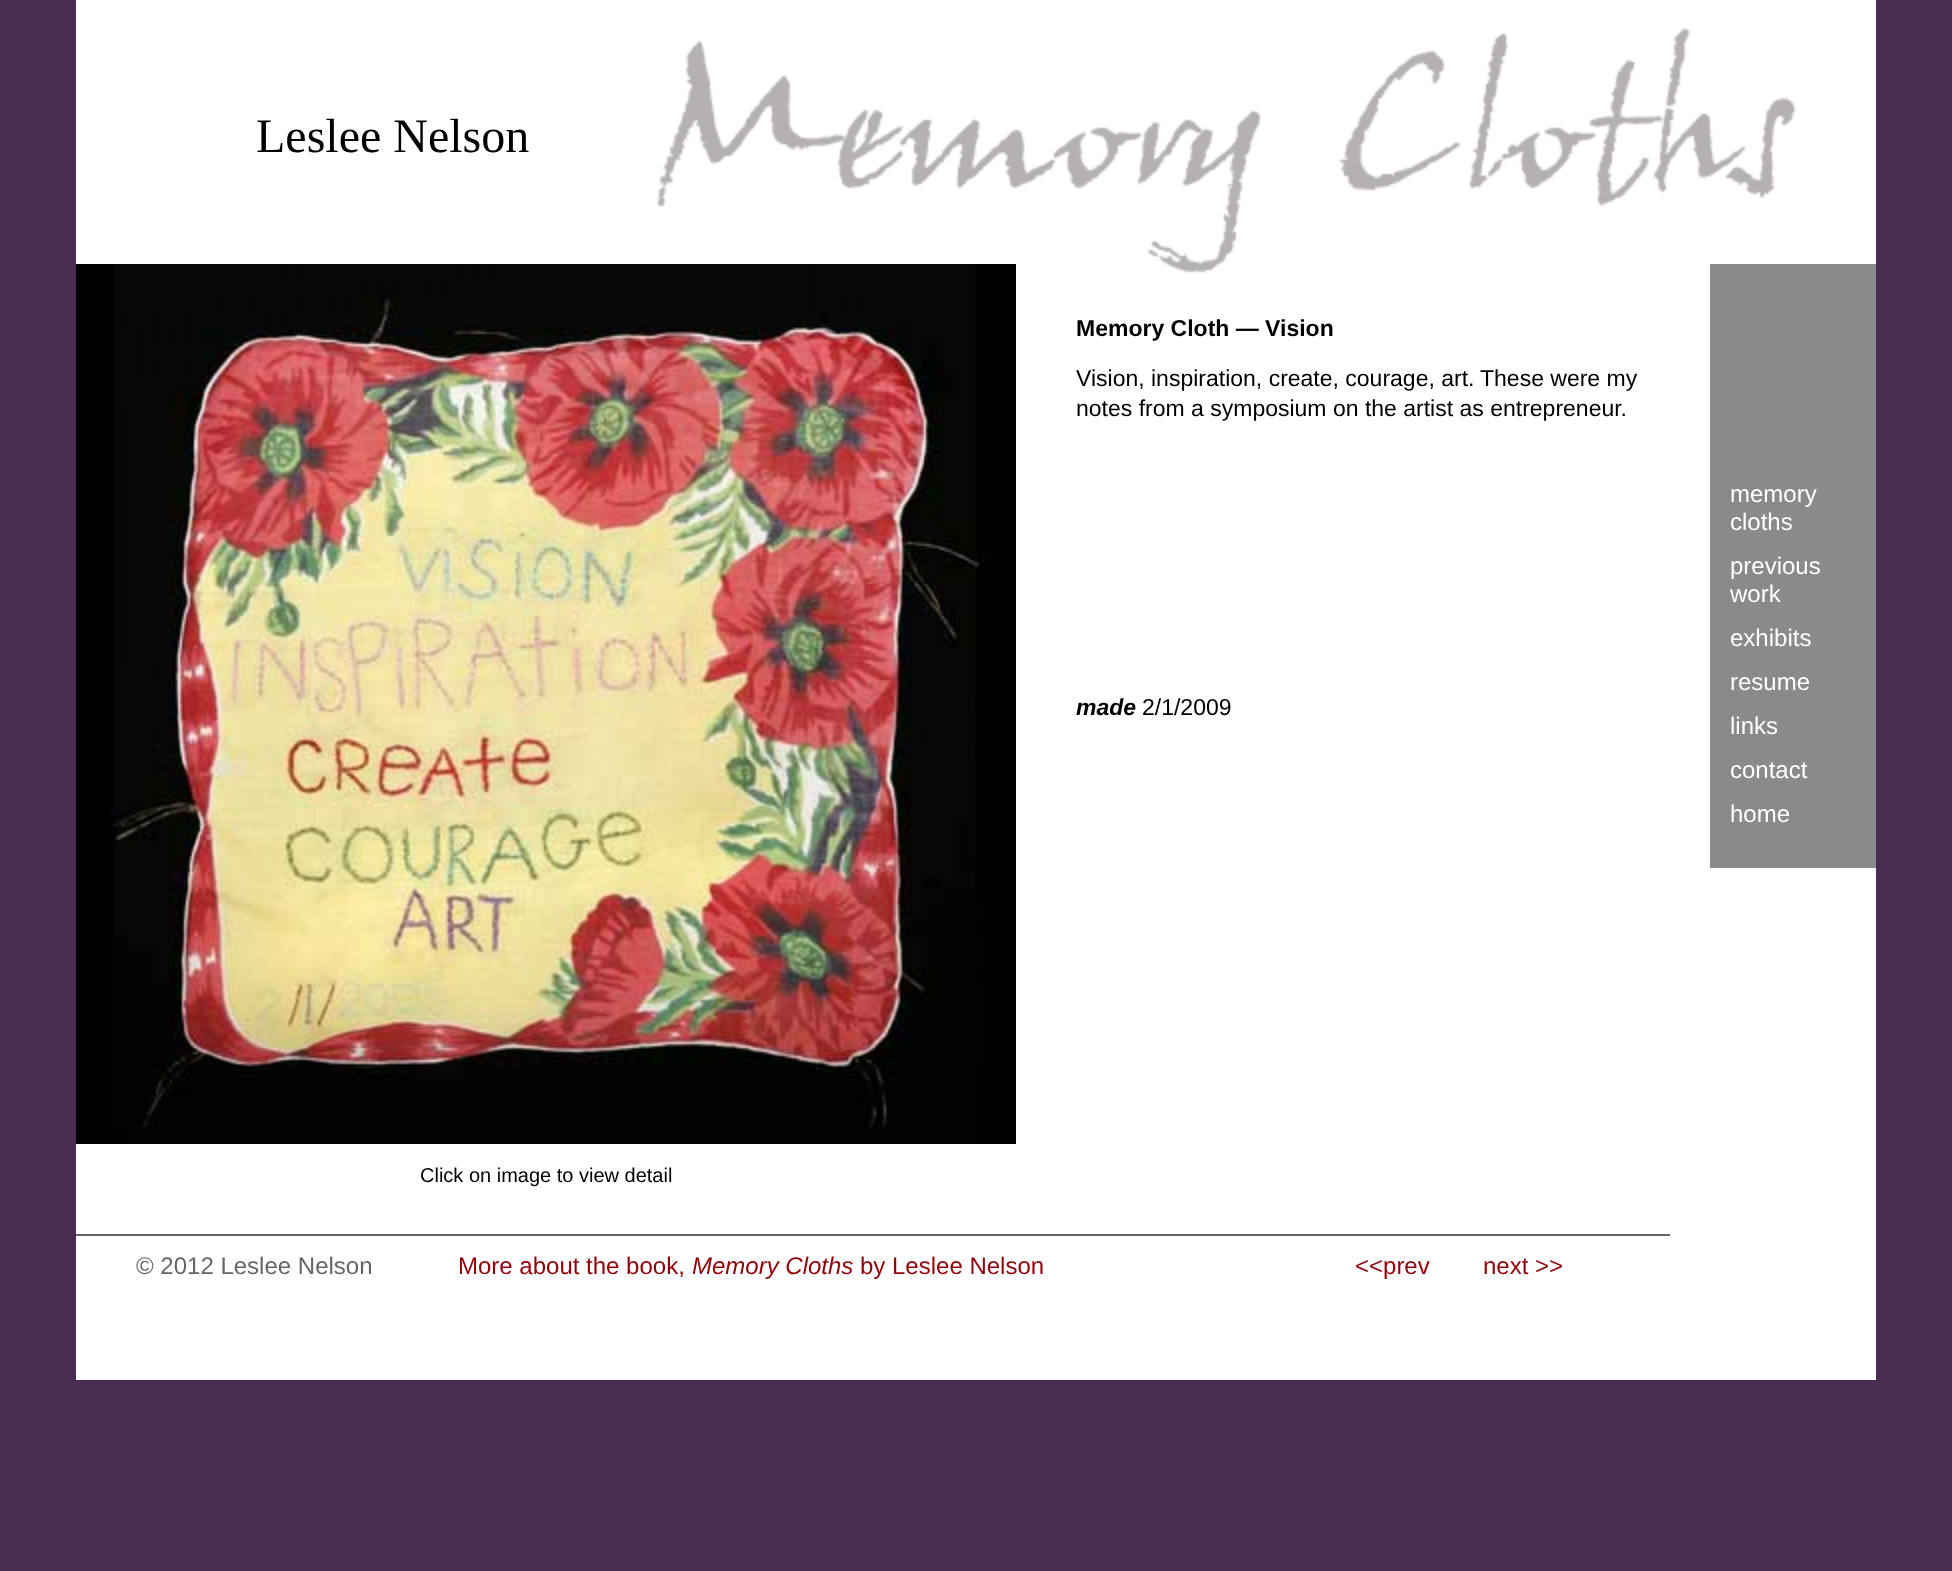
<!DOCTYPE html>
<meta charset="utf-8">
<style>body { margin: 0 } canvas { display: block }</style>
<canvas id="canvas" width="1952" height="1571"></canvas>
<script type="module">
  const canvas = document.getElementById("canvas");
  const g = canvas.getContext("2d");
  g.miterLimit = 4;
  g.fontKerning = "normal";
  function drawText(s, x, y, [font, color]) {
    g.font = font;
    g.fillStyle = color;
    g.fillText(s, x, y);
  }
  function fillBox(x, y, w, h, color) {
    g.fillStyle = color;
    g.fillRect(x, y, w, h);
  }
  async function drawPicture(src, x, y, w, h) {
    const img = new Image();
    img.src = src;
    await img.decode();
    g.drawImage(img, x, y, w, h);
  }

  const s1 = ["48px Liberation Serif", "#000000"];
  const s2 = ["bold 23px Liberation Sans", "#000000"];
  const s3 = ["23px Liberation Sans", "#000000"];
  const s4 = ["italic bold 23px Liberation Sans", "#000000"];
  const s5 = ["24px Liberation Sans", "#FFFFFF"];
  const s6 = ["20px Liberation Sans", "#000000"];
  const s7 = ["24px Liberation Sans", "#666666"];
  const s8 = ["24px Liberation Sans", "#920109"];
  const s9 = ["italic 24px Liberation Sans", "#920109"];

  fillBox(0, 0, 1952, 1571, "#482C51");
  fillBox(76, 0, 1800, 1380, "#FFFFFF");
  await drawPicture("pic1.png", 657, 27, 1140, 246);
  drawText("Leslee Nelson", 256, 152, s1);
  drawText("Memory Cloth — Vision", 1076, 336, s2);
  drawText("Vision, inspiration, create, courage, art.", 1076, 386, s3);
  drawText("These were my", 1480, 386, s3);
  drawText("notes from a symposium on the artist as entrepreneur.", 1076, 416, s3);
  drawText("made", 1076, 715, s4);
  drawText("2/1/2009", 1142, 715, s3);
  fillBox(1710, 264, 166, 604, "#8A8A8A");
  drawText("memory", 1730, 502, s5);
  drawText("cloths", 1730, 530, s5);
  drawText("previous", 1730, 574, s5);
  drawText("work", 1730, 602, s5);
  drawText("exhibits", 1730, 646, s5);
  drawText("resume", 1730, 690, s5);
  drawText("links", 1730, 734, s5);
  drawText("contact", 1730, 778, s5);
  drawText("home", 1730, 822, s5);
  await drawPicture("pic2.png", 76, 264, 940, 880);
  drawText("Click on image to view detail", 420, 1182, s6);
  fillBox(76, 1234, 1594, 2, "#666666");
  drawText("© 2012 Leslee Nelson", 136, 1274, s7);
  drawText("More about the book,", 458, 1274, s8);
  drawText("Memory Cloths", 692, 1274, s9);
  drawText("by Leslee Nelson", 860, 1274, s8);
  drawText("<<prev", 1355, 1274, s8);
  drawText("next >>", 1483, 1274, s8);
</script>
